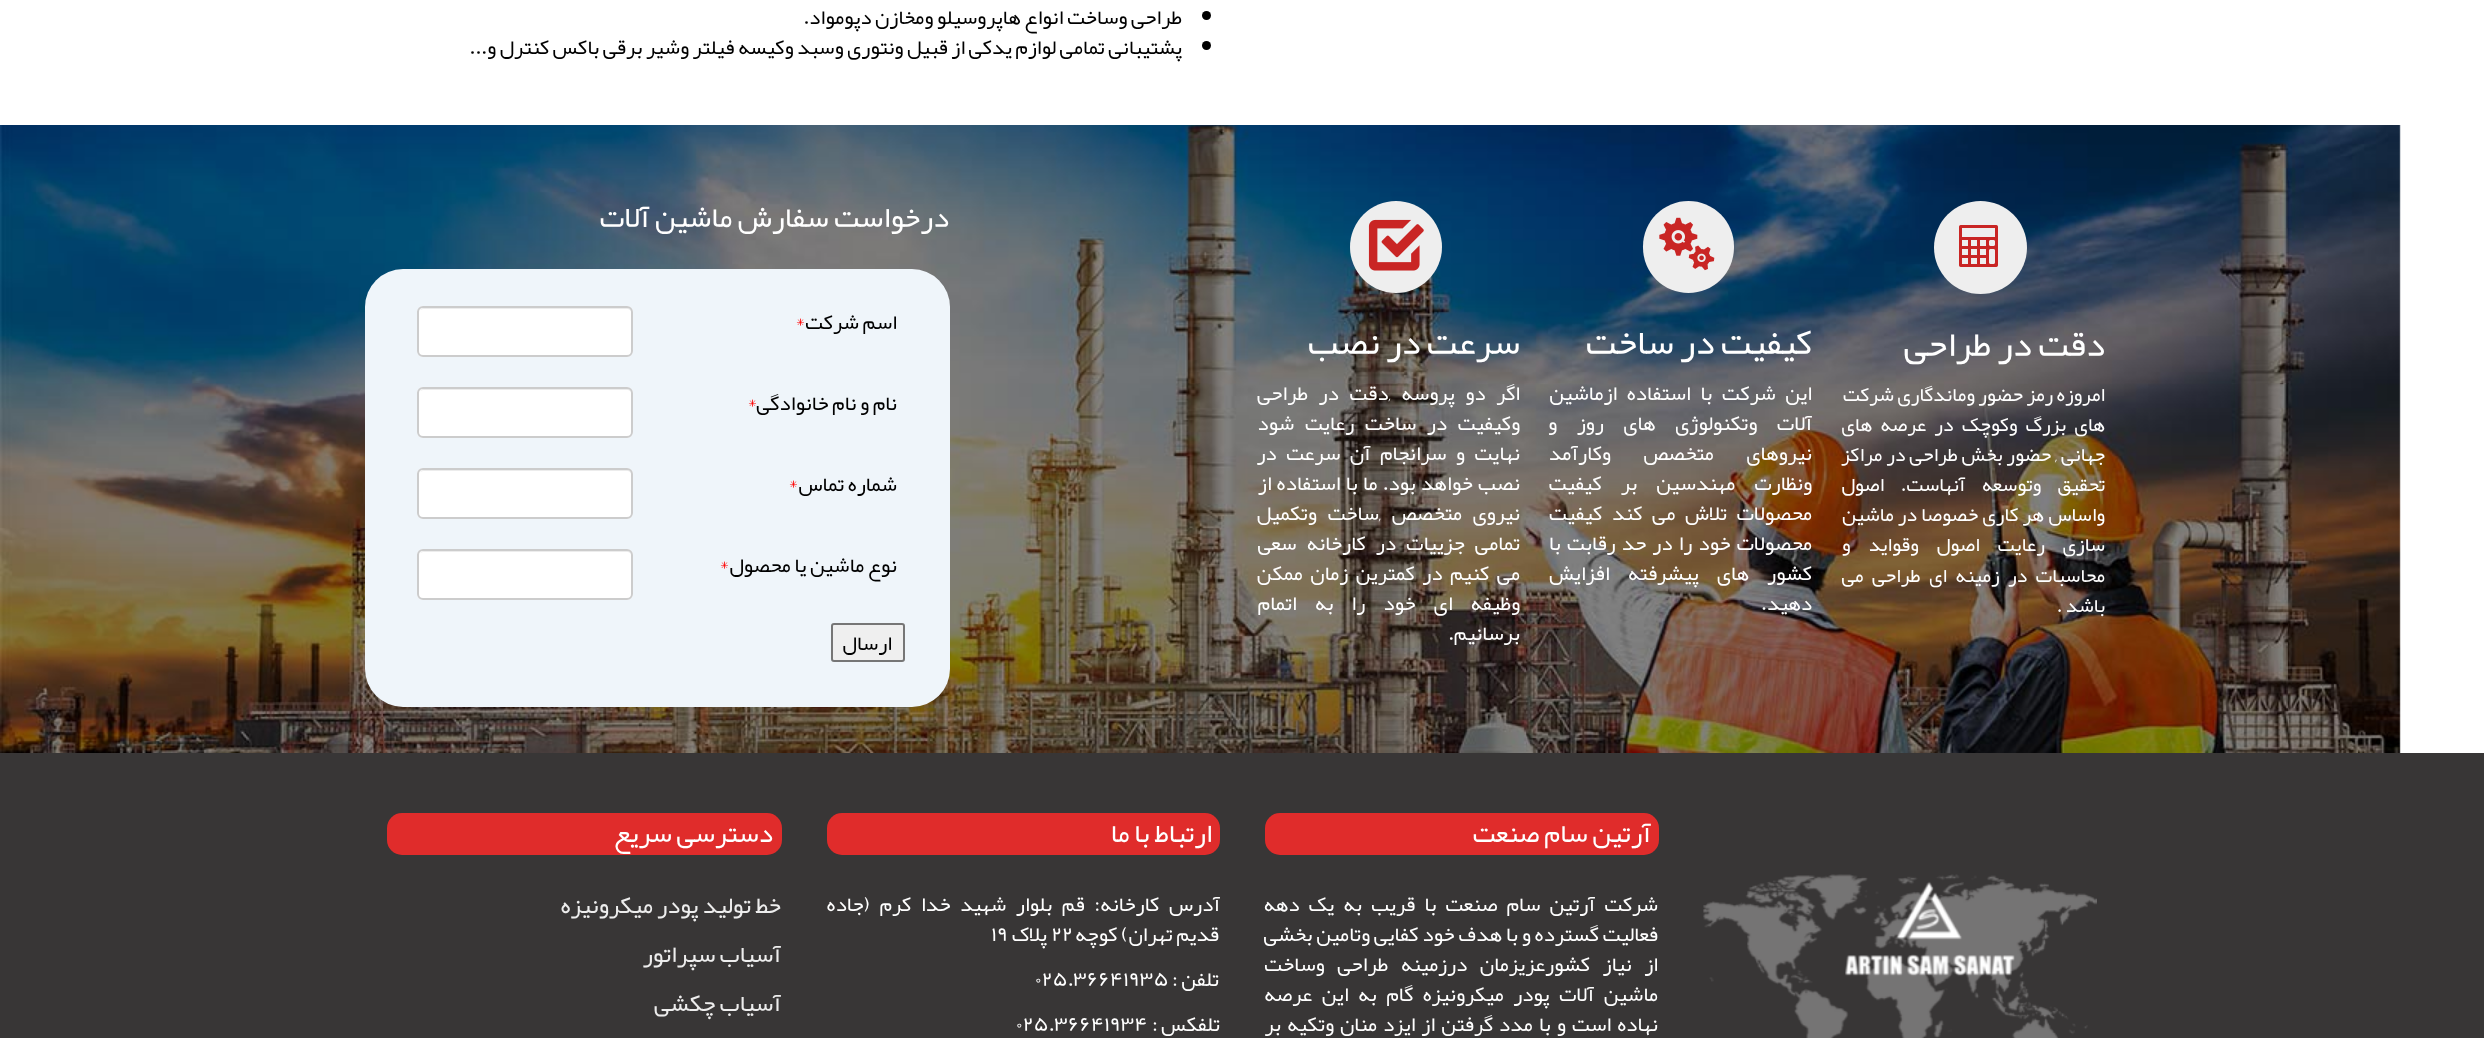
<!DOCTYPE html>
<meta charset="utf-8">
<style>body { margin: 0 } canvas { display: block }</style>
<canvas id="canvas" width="2484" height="1038"></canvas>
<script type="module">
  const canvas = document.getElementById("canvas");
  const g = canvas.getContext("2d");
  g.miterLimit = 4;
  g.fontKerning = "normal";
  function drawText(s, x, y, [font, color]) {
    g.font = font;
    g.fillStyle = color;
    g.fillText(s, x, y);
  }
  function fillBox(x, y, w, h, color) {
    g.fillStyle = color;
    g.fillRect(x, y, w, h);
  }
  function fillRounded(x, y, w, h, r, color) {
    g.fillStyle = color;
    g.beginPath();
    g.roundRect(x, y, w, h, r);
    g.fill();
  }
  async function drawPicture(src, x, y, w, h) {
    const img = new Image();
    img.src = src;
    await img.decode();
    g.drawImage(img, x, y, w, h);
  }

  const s1 = ["21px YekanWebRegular", "#000000"];
  const s2 = ["36px YekanWebRegular", "#FFFFFF"];
  const s3 = ["20px YekanWebRegular", "#FFFFFF"];
  const s4 = ["21px YekanWebRegular", "#FFFFFF"];
  const s5 = ["30px YekanWebRegular", "#FFFFFF"];
  const s6 = ["21px YekanWebRegular", "#FF0000"];
  const s7 = ["27px YekanWebRegular", "#FFFFFF"];
  const s8 = ["24px YekanWebRegular", "#EDEDED"];

  fillBox(0, 0, 2484, 1038, "#FFFFFF");
  g.fillStyle = "#000000";
  g.beginPath();
  g.arc(1206.5, 15.5, 4.5, 0, Math.PI * 2);
  g.fill();
  g.direction = "rtl";
  drawText("طراحی وساخت انواع هاپروسیلو ومخازن دپومواد.", 1182, 24, s1);
  g.beginPath();
  g.arc(1206.5, 45.5, 4.5, 0, Math.PI * 2);
  g.fill();
  drawText("پشتیبانی تمامی لوازم یدکی از قبیل ونتوری وسبد وکیسه فیلتر وشیر برقی باکس کنترل و...", 1182, 54, s1);
  await drawPicture("pic1.png", 0, 125, 2401, 628);
  g.fillStyle = "#EEEEEE";
  g.beginPath();
  g.arc(1980.5, 247.5, 46.5, 0, Math.PI * 2);
  g.fill();
  await drawPicture("pic2.png", 1959, 225, 39, 42);
  drawText("دقت در طراحی", 2105, 356, s2);
  drawText("امروزه رمز حضور وماندگاری شرکت", 2105, 401, s3);
  g.wordSpacing = "4.75px";
  drawText("های بزرگ وکوچک در عرصه های", 2105, 431, s3);
  g.wordSpacing = "0.5px";
  drawText("جهانی , حضور بخش طراحی در مراکز", 2105, 461, s3);
  g.wordSpacing = "13px";
  drawText("تحقیق وتوسعه آنهاست. اصول", 2105, 491, s3);
  g.wordSpacing = "0.75px";
  drawText("واساس هر کاری خصوصا در ماشین", 2105, 521, s3);
  g.wordSpacing = "14.5px";
  drawText("سازی رعایت اصول وقواید و", 2105, 551, s3);
  g.wordSpacing = "5px";
  drawText("محاسبات در زمینه ای طراحی می", 2105, 582, s3);
  g.wordSpacing = "0px";
  drawText("باشد .", 2105, 612, s3);
  fillRounded(1643, 201, 91, 92, 45.5, "#EEEEEE");
  await drawPicture("pic3.png", 1659, 217, 56, 54);
  drawText("کیفیت در ساخت", 1812, 354, s2);
  g.wordSpacing = "6px";
  drawText("این شرکت با استفاده ازماشین", 1812, 400, s4);
  g.wordSpacing = "16px";
  drawText("آلات وتکنولوژی های روز و", 1812, 430, s4);
  g.wordSpacing = "29px";
  drawText("نیروهای متخصص وکارآمد", 1812, 460, s4);
  g.wordSpacing = "15.5px";
  drawText("ونظارت مهندسین بر کیفیت", 1812, 490, s4);
  g.wordSpacing = "6px";
  drawText("محصولات تلاش می کند کیفیت", 1812, 520, s4);
  g.wordSpacing = "2.4px";
  drawText("محصولات خود را در حد رقابت با", 1812, 550, s4);
  g.wordSpacing = "14.5px";
  drawText("کشور های پیشرفته افزایش", 1812, 580, s4);
  g.wordSpacing = "0px";
  drawText("دهید.", 1812, 610, s4);
  g.fillStyle = "#EEEEEE";
  g.beginPath();
  g.arc(1396, 247, 46, 0, Math.PI * 2);
  g.fill();
  await drawPicture("pic4.png", 1368, 219, 56, 52);
  drawText("سرعت در نصب", 1520, 354, s2);
  g.wordSpacing = "7px";
  drawText("اگر دو پروسه ,دقت در طراحی", 1520, 400, s4);
  drawText("وکیفیت در ساخت رعایت شود", 1520, 430, s4);
  g.wordSpacing = "5.75px";
  drawText("نهایت و سرانجام آن سرعت در", 1520, 460, s4);
  g.wordSpacing = "1.5px";
  drawText("نصب خواهد بود. ما با استفاده از", 1520, 490, s4);
  g.wordSpacing = "7px";
  drawText("نیروی متخصص ,ساخت وتکمیل", 1520, 520, s4);
  g.wordSpacing = "6.5px";
  drawText("تمامی جزییات در کارخانه سعی", 1520, 550, s4);
  g.wordSpacing = "4px";
  drawText("می کنیم در کمترین زمان ممکن", 1520, 580, s4);
  g.wordSpacing = "14.5px";
  drawText("وظیفه ای خود را به اتمام", 1520, 610, s4);
  g.wordSpacing = "0px";
  drawText("برسانیم.", 1520, 640, s4);
  drawText("درخواست سفارش ماشین آلات", 949, 227, s5);
  fillRounded(365, 269, 585, 438, 38, "#EFF5FA");
  drawText("اسم شرکت", 897, 329, s1);
  g.direction = "ltr";
  drawText("*", 795, 329, s6);
  fillRounded(417, 306, 216, 51, 6, "#FFFFFF");
  g.fillStyle = "#ECECEC";
  g.beginPath();
  g.moveTo(423, 309);
  g.lineTo(627, 309);
  g.bezierCurveTo(629, 309, 632, 311, 632, 314);
  g.lineTo(632, 313);
  g.bezierCurveTo(632, 310, 630, 308, 627, 308);
  g.lineTo(424, 308);
  g.bezierCurveTo(422, 308, 421, 309, 420, 310);
  g.closePath();
  g.fill();
  g.beginPath();
  g.roundRect(418, 307, 214, 49, 5);
  g.strokeStyle = "#CCCCCC";
  g.lineWidth = 2;
  g.stroke();
  g.direction = "rtl";
  drawText("نام و نام خانوادگی", 897, 410, s1);
  g.direction = "ltr";
  drawText("*", 747, 410, s6);
  fillRounded(417, 387, 216, 51, 6, "#FFFFFF");
  g.fillStyle = "#ECECEC";
  g.beginPath();
  g.moveTo(423, 390);
  g.lineTo(627, 390);
  g.bezierCurveTo(629, 390, 632, 392, 632, 394);
  g.bezierCurveTo(632, 391, 630, 389, 627, 389);
  g.lineTo(424, 389);
  g.bezierCurveTo(422, 389, 421, 390, 420, 391);
  g.closePath();
  g.fill();
  g.beginPath();
  g.roundRect(418, 388, 214, 49, 5);
  g.stroke();
  g.direction = "rtl";
  drawText("شماره تماس", 897, 491, s1);
  g.direction = "ltr";
  drawText("*", 788, 491, s6);
  fillRounded(417, 468, 216, 51, 6, "#FFFFFF");
  g.fillStyle = "#ECECEC";
  g.beginPath();
  g.moveTo(423, 471);
  g.lineTo(627, 471);
  g.bezierCurveTo(629, 471, 632, 473, 632, 476);
  g.lineTo(632, 475);
  g.bezierCurveTo(632, 472, 630, 470, 627, 470);
  g.lineTo(424, 470);
  g.bezierCurveTo(422, 470, 421, 471, 420, 472);
  g.closePath();
  g.fill();
  g.beginPath();
  g.roundRect(418, 469, 214, 49, 5);
  g.stroke();
  g.direction = "rtl";
  drawText("نوع ماشین یا محصول", 897, 572, s1);
  g.direction = "ltr";
  drawText("*", 719, 572, s6);
  fillRounded(417, 549, 216, 51, 6, "#FFFFFF");
  g.fillStyle = "#ECECEC";
  g.beginPath();
  g.moveTo(423, 552);
  g.lineTo(627, 552);
  g.bezierCurveTo(629, 552, 632, 554, 632, 556);
  g.bezierCurveTo(632, 553, 630, 551, 627, 551);
  g.lineTo(424, 551);
  g.bezierCurveTo(422, 551, 421, 552, 420, 553);
  g.closePath();
  g.fill();
  g.beginPath();
  g.roundRect(418, 550, 214, 49, 5);
  g.stroke();
  g.fillStyle = "#EFEFEF";
  g.beginPath();
  g.roundRect(832, 624, 72, 37, 2);
  g.fill();
  g.strokeStyle = "#767676";
  g.stroke();
  g.direction = "rtl";
  drawText("ارسال", 892, 650, s1);
  fillBox(0, 753, 2484, 285, "#383636");
  await drawPicture("pic5.png", 1703, 874, 394, 164);
  fillRounded(1265, 813, 394, 42, 15, "#E02C2B");
  drawText("آرتین سام صنعت", 1651, 842, s7);
  g.wordSpacing = "5.5px";
  drawText("شرکت آرتین سام صنعت با قریب به یک دهه", 1658, 911, s4);
  g.wordSpacing = "0.25px";
  drawText("فعالیت گسترده و با هدف خود کفایی وتامین بخشی", 1658, 941, s4);
  g.wordSpacing = "9px";
  drawText("از نیاز کشورعزیزمان درزمینه طراحی وساخت", 1658, 971, s4);
  g.wordSpacing = "6px";
  drawText("ماشین آلات پودر میکرونیزه گام به این عرصه", 1658, 1001, s4);
  g.wordSpacing = "2.4px";
  drawText("نهاده است و با مدد گرفتن از ایزد منان وتکیه بر", 1658, 1031, s4);
  fillRounded(827, 813, 393, 42, 15, "#E02C2B");
  g.wordSpacing = "0px";
  drawText("ارتباط با ما", 1212, 842, s7);
  g.wordSpacing = "6px";
  drawText("آدرس کارخانه: قم بلوار شهید خدا کرم (جاده", 1220, 911, s4);
  g.wordSpacing = "0px";
  drawText("قدیم تهران) کوچه", 1219, 941, s4);
  g.direction = "ltr";
  drawText("22", 1051, 941, s4);
  g.direction = "rtl";
  drawText("پلاک", 1047, 941, s4);
  g.direction = "ltr";
  drawText("19", 991, 941, s4);
  g.direction = "rtl";
  drawText("تلفن :", 1219, 986, s4);
  g.direction = "ltr";
  drawText("025.36641935", 1035, 986, s4);
  g.direction = "rtl";
  drawText("تلفکس :", 1220, 1031, s4);
  g.direction = "ltr";
  drawText("025.36641934", 1016, 1031, s4);
  fillRounded(387, 813, 395, 42, 15, "#E02C2B");
  g.direction = "rtl";
  drawText("دسترسی سریع", 773, 842, s7);
  drawText("خط تولید پودر میکرونیزه", 781, 913, s8);
  drawText("آسیاب سپراتور", 781, 962, s8);
  drawText("آسیاب چکشی", 781, 1011, s8);
</script>
